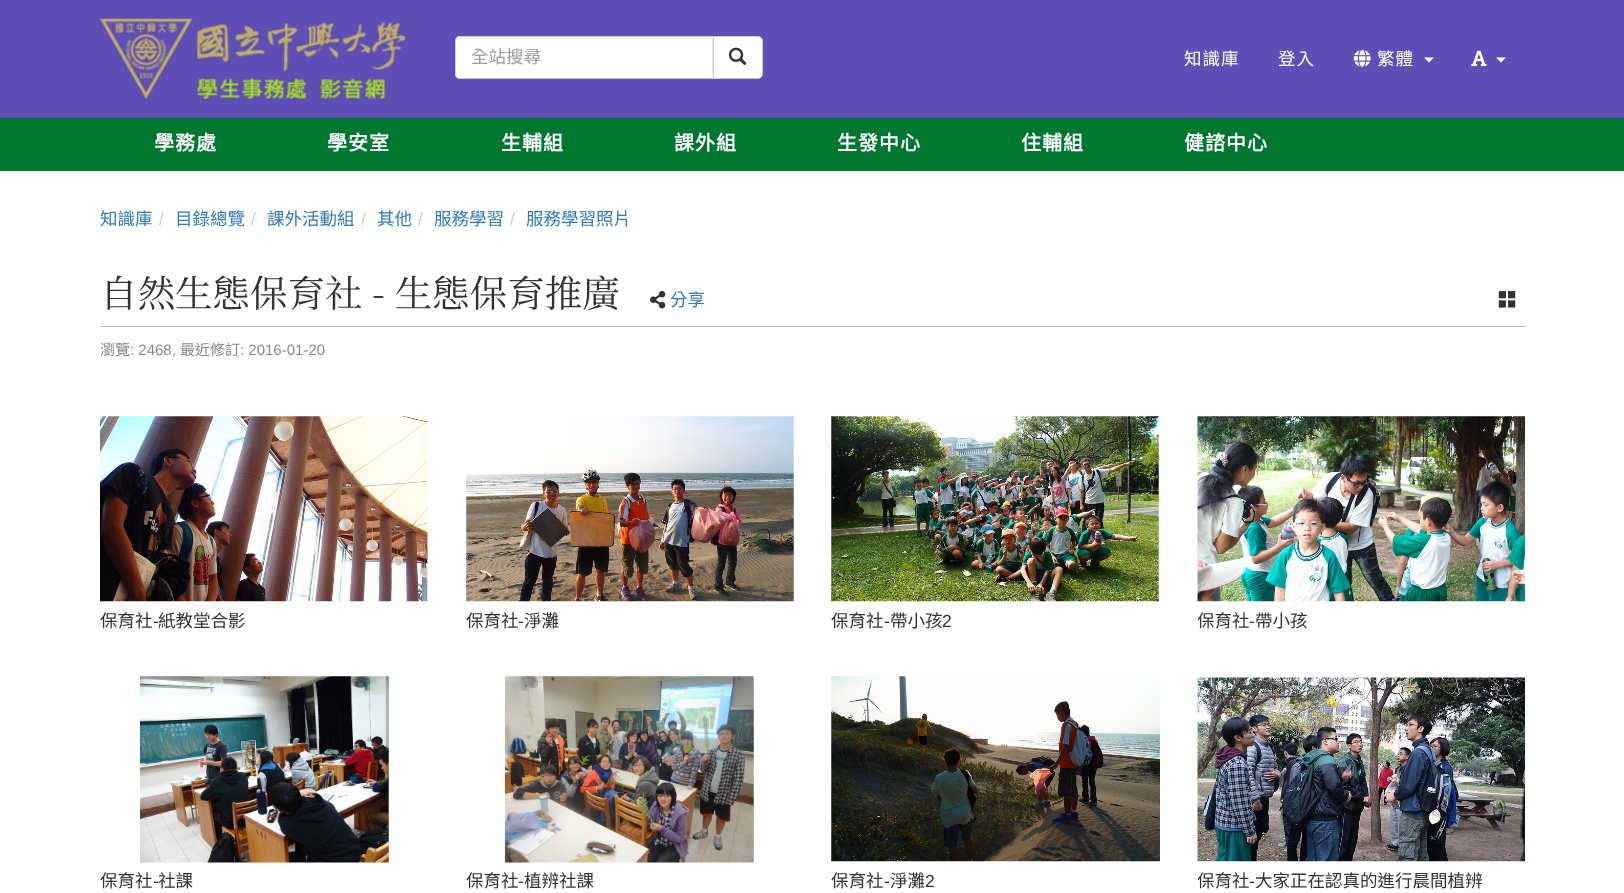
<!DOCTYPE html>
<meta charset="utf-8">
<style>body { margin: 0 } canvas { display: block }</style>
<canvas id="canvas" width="1624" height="893"></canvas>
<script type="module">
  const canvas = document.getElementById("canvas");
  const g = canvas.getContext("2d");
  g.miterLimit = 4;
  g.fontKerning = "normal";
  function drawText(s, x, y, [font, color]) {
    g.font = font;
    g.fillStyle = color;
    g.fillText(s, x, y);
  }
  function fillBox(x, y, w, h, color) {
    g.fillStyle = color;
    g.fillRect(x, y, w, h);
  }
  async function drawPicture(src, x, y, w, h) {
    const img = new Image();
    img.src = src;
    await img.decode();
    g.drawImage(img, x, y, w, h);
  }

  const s1 = ["17.5px Noto Sans CJK TC", "#999999"];
  const s2 = ["17.5px Noto Sans CJK TC", "#FFFFFF"];
  const s3 = ["bold 20px Noto Sans CJK TC", "#FFFFFF"];
  const s4 = ["17.5px Noto Sans CJK TC", "#337AB7"];
  const s5 = ["17.5px Liberation Sans", "#CCCCCC"];
  const s6 = ["200 37.5px Noto Serif TC", "#333333"];
  const s7 = ["15px Noto Sans CJK TC", "#888888"];
  const s8 = ["15px Liberation Sans", "#888888"];
  const s9 = ["17.5px Noto Sans CJK TC", "#333333"];
  const s10 = ["17.5px Liberation Sans", "#333333"];

  fillBox(0, 0, 1624, 893, "#FFFFFF");
  fillBox(0, 0, 1624, 118, "#5F4EB6");
  await drawPicture("pic1.png", 100, 18, 305, 81);
  g.fillStyle = "#FFFFFF";
  g.beginPath();
  g.roundRect(455, 36, 259, 43, [5, 0, 0, 5]);
  g.fill();
  g.fillStyle = "#ECECEC";
  g.beginPath();
  g.moveTo(460, 39);
  g.lineTo(712, 39);
  g.lineTo(712, 78);
  g.lineTo(713, 78);
  g.lineTo(713, 38);
  g.lineTo(460, 38);
  g.bezierCurveTo(458, 38, 456, 40, 456, 42);
  g.bezierCurveTo(456, 40, 458, 39, 460, 39);
  g.closePath();
  g.fill();
  g.beginPath();
  g.roundRect(455.5, 36.5, 258, 42, [4.5, 0, 0, 4.5]);
  g.strokeStyle = "#CCCCCC";
  g.stroke();
  drawText("全站搜尋", 471, 63, s1);
  g.fillStyle = "#FFFFFF";
  g.beginPath();
  g.roundRect(713.5, 36.5, 49, 42, [0, 4.5, 4.5, 0]);
  g.fill();
  g.stroke();
  await drawPicture("pic2.png", 728, 47, 19, 19);
  g.letterSpacing = "1px";
  drawText("知識庫", 1184, 65, s2);
  drawText("登入", 1278, 65, s2);
  await drawPicture("pic3.png", 1353, 50, 18, 17);
  drawText("繁體", 1377, 65, s2);
  g.beginPath();
  g.moveTo(1424, 57.5);
  g.lineTo(1434, 57.5);
  g.lineTo(1429, 62.5);
  g.closePath();
  g.fill();
  await drawPicture("pic4.png", 1471, 50, 16, 17);
  g.beginPath();
  g.moveTo(1496, 57.5);
  g.lineTo(1506, 57.5);
  g.lineTo(1501, 62.5);
  g.closePath();
  g.fill();
  fillBox(0, 118, 1624, 53, "#007731");
  drawText("學務處", 154, 150, s3);
  drawText("學安室", 327, 150, s3);
  drawText("生輔組", 501, 150, s3);
  drawText("課外組", 674, 150, s3);
  drawText("生發中心", 837, 150, s3);
  drawText("住輔組", 1021, 150, s3);
  drawText("健諮中心", 1184, 150, s3);
  g.letterSpacing = "0px";
  drawText("知識庫", 100, 225, s4);
  drawText("/", 159, 225, s5);
  drawText("目錄總覽", 175, 225, s4);
  drawText("/", 251, 225, s5);
  drawText("課外活動組", 267, 225, s4);
  drawText("/", 361, 225, s5);
  drawText("其他", 377, 225, s4);
  drawText("/", 418, 225, s5);
  drawText("服務學習", 434, 225, s4);
  drawText("/", 510, 225, s5);
  drawText("服務學習照片", 526, 225, s4);
  fillBox(100, 326, 1425, 1, "#BBBBBB");
  drawText("自然生態保育社 - 生態保育推廣", 100, 307, s6);
  await drawPicture("pic5.png", 650, 291, 16, 18);
  drawText("分享", 670, 306, s4);
  await drawPicture("pic6.png", 1498, 291, 18, 17);
  drawText("瀏覽", 100, 355, s7);
  drawText(": 2468,", 130, 355, s8);
  drawText("最近修訂", 180, 355, s7);
  drawText(": 2016-01-20", 240, 355, s8);
  await drawPicture("pic7.png", 100, 416, 328, 186);
  drawText("保育社", 100, 627, s9);
  drawText("-", 153, 627, s10);
  drawText("紙教堂合影", 158, 627, s9);
  await drawPicture("pic8.png", 466, 416, 328, 186);
  drawText("保育社", 466, 627, s9);
  drawText("-", 518, 627, s10);
  drawText("淨灘", 524, 627, s9);
  await drawPicture("pic9.png", 831, 416, 328, 186);
  drawText("保育社", 831, 627, s9);
  drawText("-", 884, 627, s10);
  drawText("帶小孩", 890, 627, s9);
  drawText("2", 942, 627, s10);
  await drawPicture("pic10.png", 1197, 416, 328, 186);
  g.save();
  g.beginPath();
  g.rect(1198, 608, 327, 25);
  g.clip();
  drawText("保育社", 1197, 627, s9);
  g.restore();
  drawText("-", 1249, 627, s10);
  drawText("帶小孩", 1255, 627, s9);
  await drawPicture("pic11.png", 140, 676, 249, 187);
  drawText("保育社", 100, 887, s9);
  drawText("-", 153, 887, s10);
  drawText("社課", 158, 887, s9);
  await drawPicture("pic12.png", 505, 676, 249, 187);
  drawText("保育社", 466, 887, s9);
  drawText("-", 518, 887, s10);
  drawText("植辨社課", 524, 887, s9);
  await drawPicture("pic13.png", 831, 676, 329, 186);
  drawText("保育社", 831, 887, s9);
  drawText("-", 884, 887, s10);
  drawText("淨灘", 890, 887, s9);
  drawText("2", 925, 887, s10);
  await drawPicture("pic14.png", 1197, 677, 328, 185);
  g.save();
  g.beginPath();
  g.rect(1198, 869, 327, 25);
  g.clip();
  drawText("保育社", 1197, 887, s9);
  g.restore();
  drawText("-", 1249, 887, s10);
  drawText("大家正在認真的進行晨間植辨", 1255, 887, s9);
</script>
